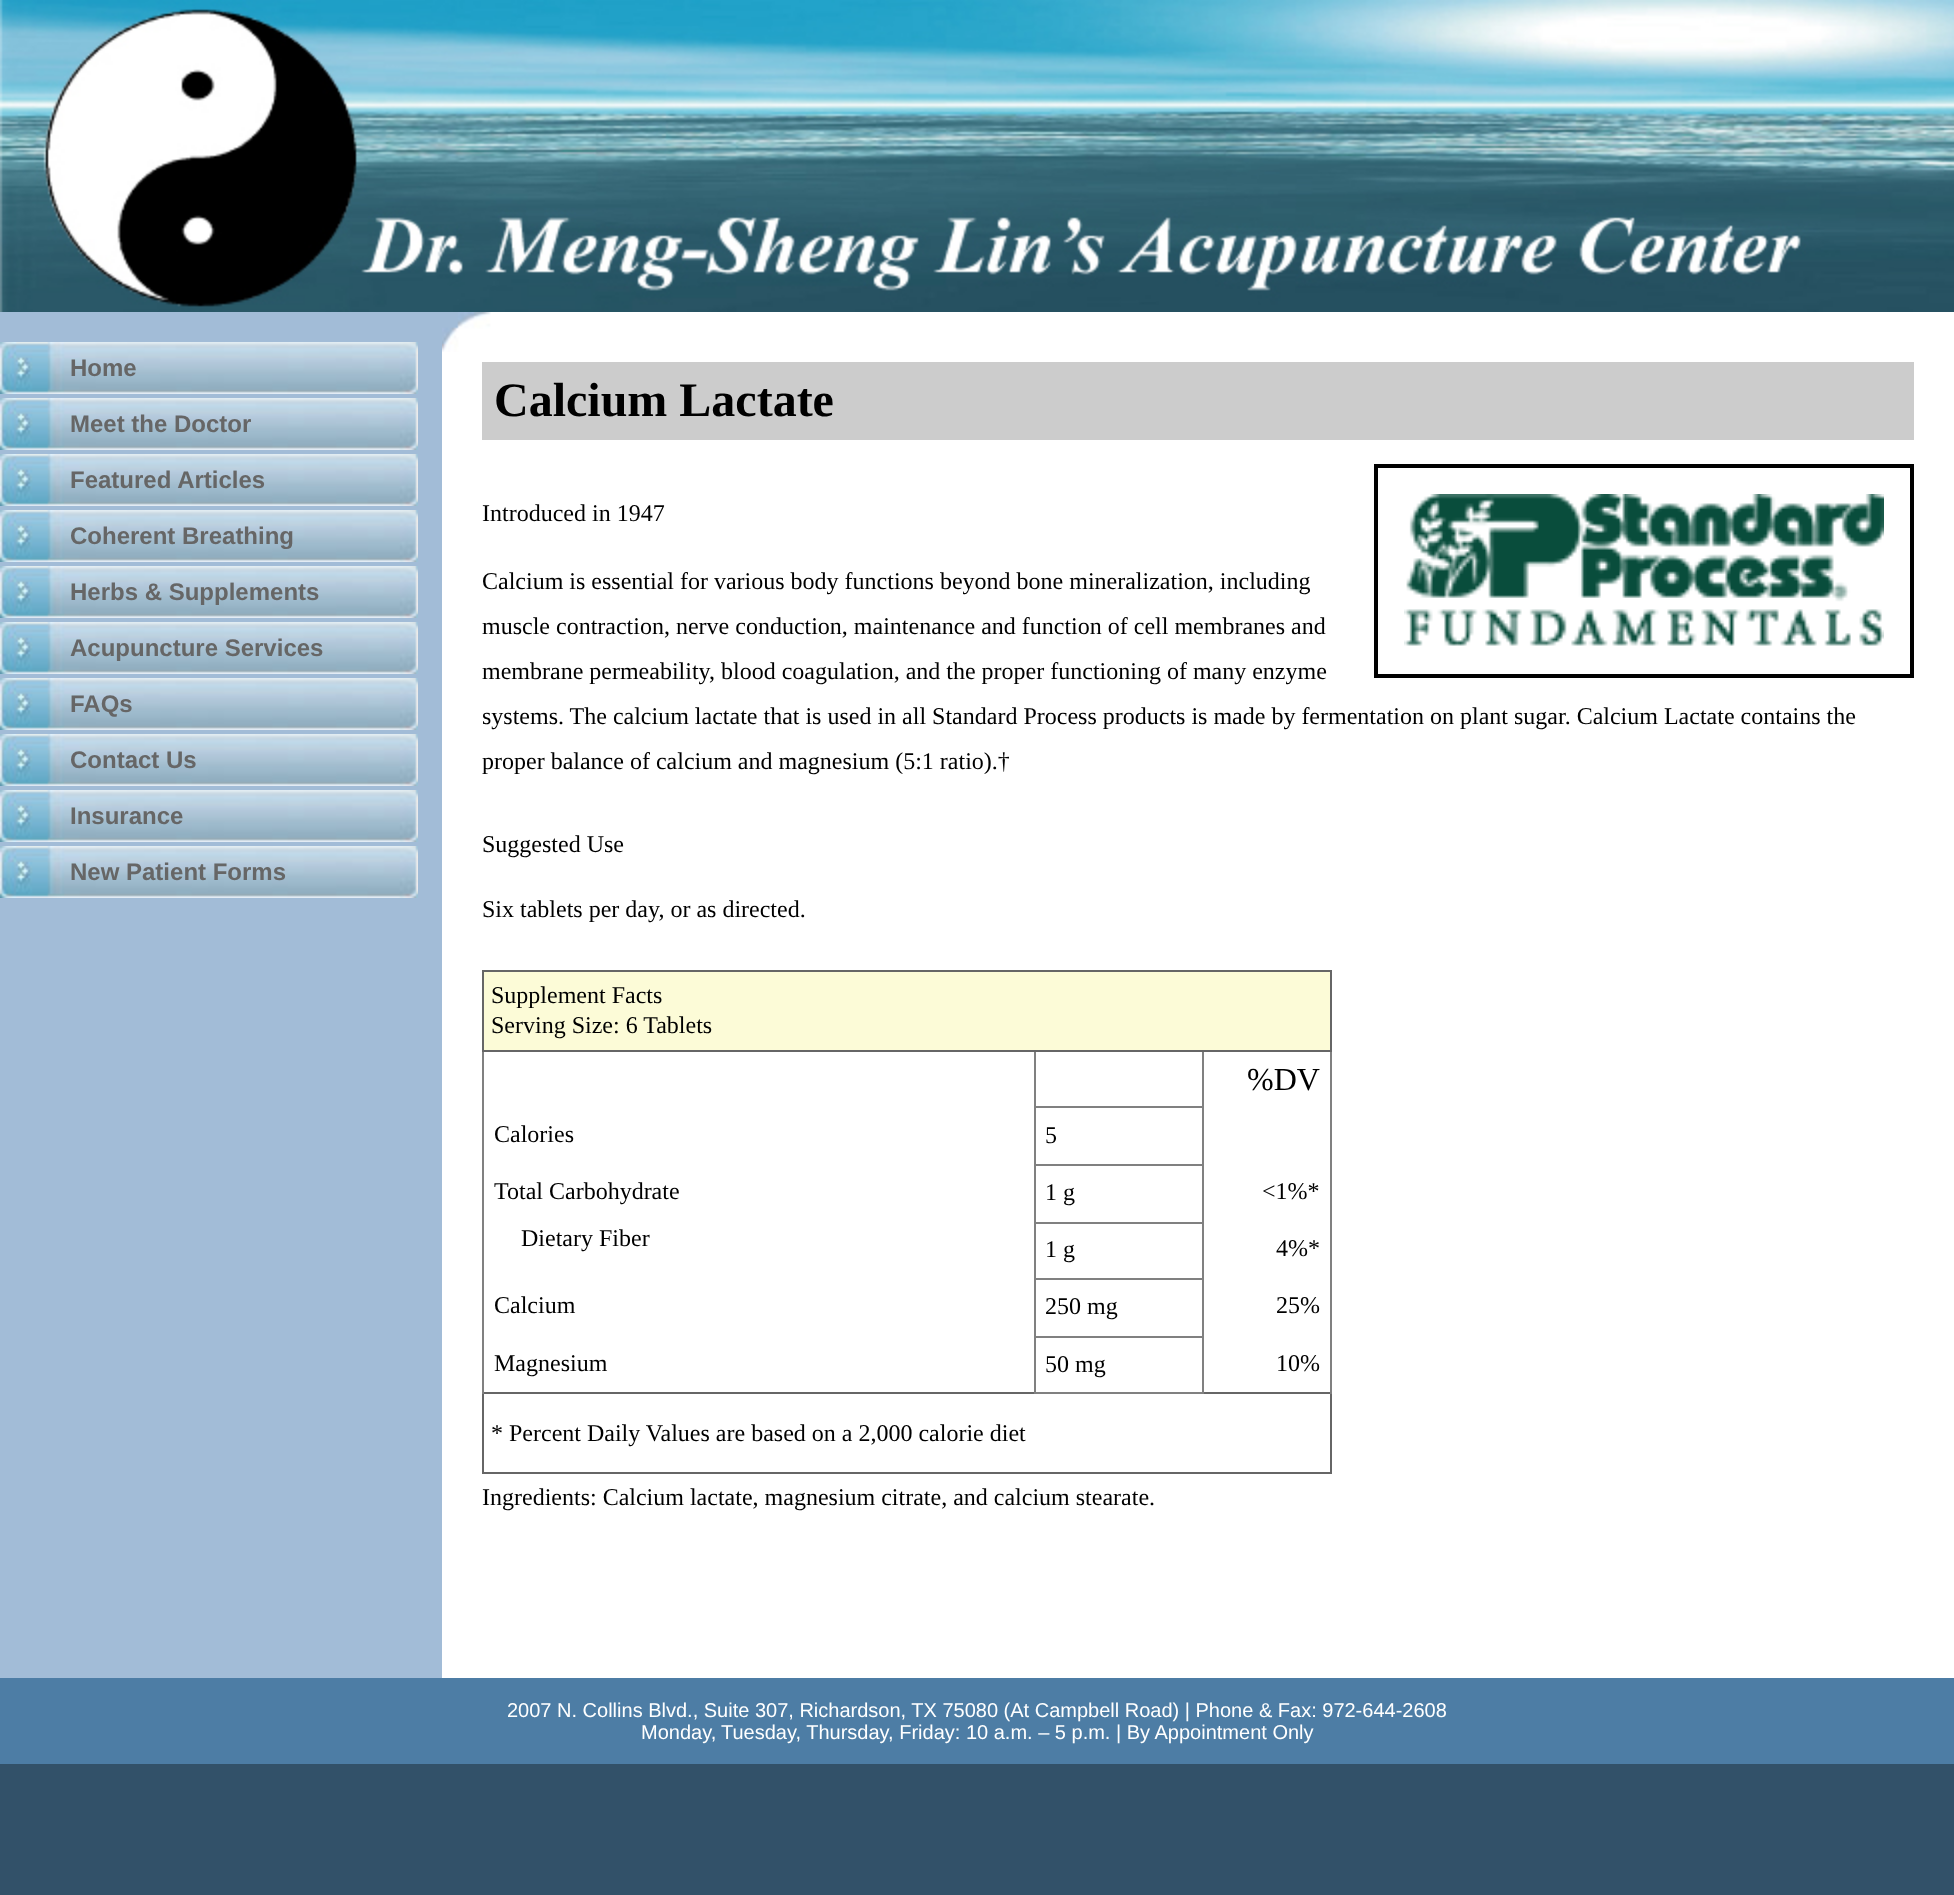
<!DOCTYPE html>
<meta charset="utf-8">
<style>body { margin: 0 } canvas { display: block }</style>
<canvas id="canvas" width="1954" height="1895"></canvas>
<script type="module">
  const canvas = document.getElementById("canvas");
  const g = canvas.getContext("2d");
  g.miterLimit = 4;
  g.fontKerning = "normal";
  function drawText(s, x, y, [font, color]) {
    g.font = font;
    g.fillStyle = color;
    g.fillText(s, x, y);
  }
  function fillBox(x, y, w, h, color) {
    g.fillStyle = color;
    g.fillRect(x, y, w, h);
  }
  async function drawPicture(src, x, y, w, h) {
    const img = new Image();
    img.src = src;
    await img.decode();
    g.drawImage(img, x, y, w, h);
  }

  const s1 = ["bold 24px Liberation Sans", "#666666"];
  const s2 = ["bold 48px Liberation Serif", "#000000"];
  const s3 = ["24px Liberation Serif", "#000000"];
  const s4 = ["32px Liberation Serif", "#000000"];
  const s5 = ["20px Liberation Sans", "#FFFFFF"];

  fillBox(0, 0, 1954, 1895, "#325169");
  await drawPicture("pic1.png", 0, 0, 1954, 312);
  fillBox(0, 312, 442, 1366, "#A2BCD7");
  await drawPicture("pic2.png", 0, 342, 418, 52);
  drawText("Home", 70, 376, s1);
  await drawPicture("pic2.png", 0, 398, 418, 52);
  drawText("Meet the Doctor", 70, 432, s1);
  await drawPicture("pic2.png", 0, 454, 418, 52);
  drawText("Featured Articles", 70, 488, s1);
  await drawPicture("pic2.png", 0, 510, 418, 52);
  drawText("Coherent Breathing", 70, 544, s1);
  await drawPicture("pic2.png", 0, 566, 418, 52);
  drawText("Herbs & Supplements", 70, 600, s1);
  await drawPicture("pic2.png", 0, 622, 418, 52);
  drawText("Acupuncture Services", 70, 656, s1);
  await drawPicture("pic2.png", 0, 678, 418, 52);
  drawText("FAQs", 70, 712, s1);
  await drawPicture("pic2.png", 0, 734, 418, 52);
  drawText("Contact Us", 70, 768, s1);
  await drawPicture("pic2.png", 0, 790, 418, 52);
  drawText("Insurance", 70, 824, s1);
  await drawPicture("pic2.png", 0, 846, 418, 52);
  drawText("New Patient Forms", 70, 880, s1);
  fillBox(442, 312, 1512, 1366, "#FFFFFF");
  await drawPicture("pic3.png", 442, 312, 49, 40);
  g.strokeStyle = "#CCCCCC";
  g.lineWidth = 2;
  g.strokeRect(483, 363, 1430, 76);
  fillBox(484, 364, 1428, 74, "#CCCCCC");
  drawText("Calcium Lactate", 494, 416, s2);
  g.strokeStyle = "#000000";
  g.strokeRect(1375, 465, 538, 212);
  g.strokeRect(1377, 467, 534, 208);
  await drawPicture("pic4.png", 1404, 494, 480, 152);
  drawText("Introduced in 1947", 482, 521, s3);
  drawText("Calcium is essential for various body functions beyond bone mineralization, including", 482, 589, s3);
  drawText("muscle contraction, nerve conduction, maintenance and function of cell membranes and", 482, 634, s3);
  drawText("membrane permeability, blood coagulation, and the proper functioning of many enzyme", 482, 679, s3);
  drawText("systems. The calcium lactate that is used in all Standard Process products is made by fermentation on plant sugar. Calcium Lactate contains the", 482, 724, s3);
  drawText("proper balance of calcium and magnesium (5:1 ratio).†", 482, 769, s3);
  drawText("Suggested Use", 482, 852, s3);
  drawText("Six tablets per day, or as directed.", 482, 917, s3);
  fillBox(1330, 1052, 2, 284, "#808080");
  fillBox(482, 1052, 2, 284, "#808080");
  fillBox(484, 972, 846, 78, "#FCFBD7");
  fillBox(482, 970, 850, 2, "#666666");
  fillBox(1330, 970, 2, 82, "#666666");
  fillBox(1034, 1106, 170, 2, "#808080");
  fillBox(1034, 1164, 170, 2, "#808080");
  fillBox(1034, 1222, 170, 2, "#808080");
  fillBox(1034, 1278, 170, 2, "#808080");
  fillBox(1034, 1336, 170, 2, "#808080");
  fillBox(482, 1392, 850, 2, "#666666");
  fillBox(1202, 1336, 2, 58, "#808080");
  fillBox(1202, 1278, 2, 60, "#808080");
  fillBox(1202, 1222, 2, 58, "#808080");
  fillBox(1202, 1164, 2, 60, "#808080");
  fillBox(1202, 1050, 2, 116, "#808080");
  fillBox(1034, 1392, 170, 2, "#808080");
  fillBox(1034, 1336, 2, 58, "#808080");
  fillBox(1034, 1278, 2, 60, "#808080");
  fillBox(1034, 1222, 2, 58, "#808080");
  fillBox(1034, 1164, 2, 60, "#808080");
  fillBox(1034, 1050, 2, 116, "#808080");
  fillBox(482, 1050, 850, 2, "#666666");
  fillBox(482, 970, 2, 82, "#666666");
  drawText("Supplement Facts", 491, 1003, s3);
  drawText("Serving Size: 6 Tablets", 491, 1033, s3);
  drawText("%DV", 1247, 1090, s4);
  drawText("Calories", 494, 1142, s3);
  drawText("5", 1045, 1143, s3);
  drawText("Total Carbohydrate", 494, 1199, s3);
  drawText("1 g", 1045, 1200, s3);
  drawText("<1%*", 1262, 1199, s3);
  drawText("Dietary Fiber", 521, 1246, s3);
  drawText("1 g", 1045, 1257, s3);
  drawText("4%*", 1276, 1256, s3);
  drawText("Calcium", 494, 1313, s3);
  drawText("250 mg", 1045, 1314, s3);
  drawText("25%", 1276, 1313, s3);
  fillBox(1330, 1392, 2, 82, "#666666");
  fillBox(482, 1472, 850, 2, "#666666");
  fillBox(482, 1392, 2, 82, "#666666");
  fillBox(482, 1336, 2, 58, "#808080");
  drawText("Magnesium", 494, 1371, s3);
  drawText("50 mg", 1045, 1372, s3);
  fillBox(1330, 1336, 2, 58, "#808080");
  drawText("10%", 1276, 1371, s3);
  drawText("* Percent Daily Values are based on a 2,000 calorie diet", 491, 1441, s3);
  drawText("Ingredients: Calcium lactate, magnesium citrate, and calcium stearate.", 482, 1505, s3);
  fillBox(0, 1678, 1954, 86, "#4D7DA5");
  drawText("2007 N. Collins Blvd., Suite 307, Richardson, TX 75080 (At Campbell Road) | Phone & Fax: 972-644-2608", 507, 1717, s5);
  drawText("Monday,", 641, 1739, s5);
  drawText("Tuesday, Thursday, Friday: 10 a.m. – 5 p.m. | By Appointment Only", 721, 1739, s5);
</script>
